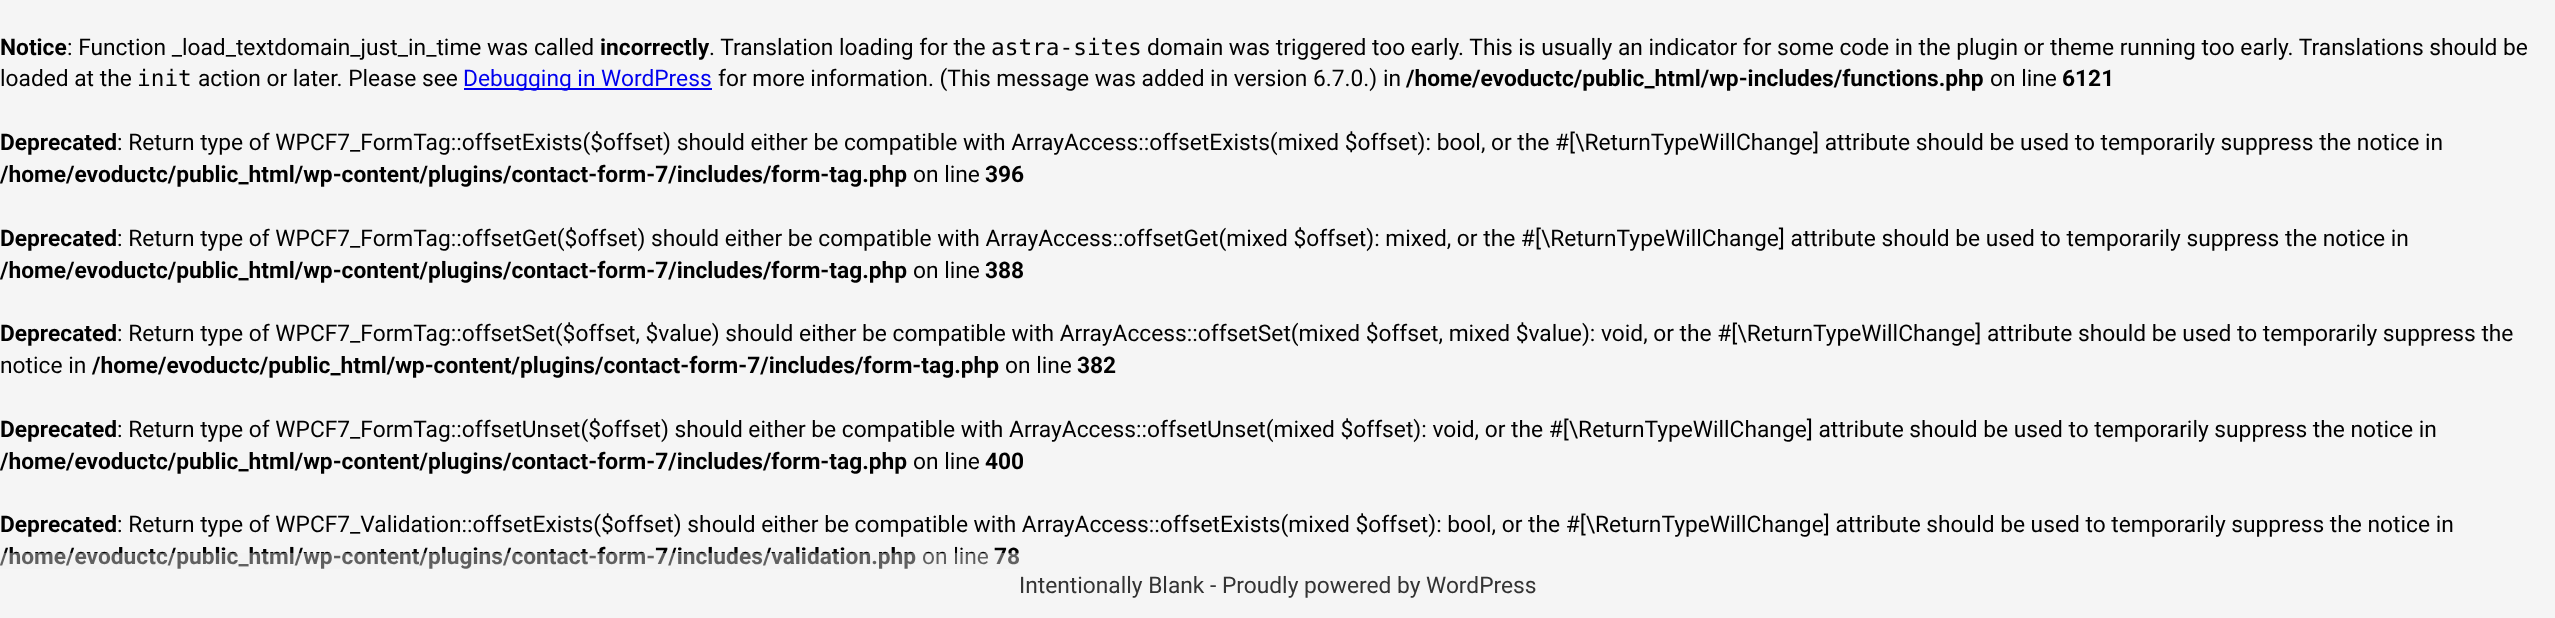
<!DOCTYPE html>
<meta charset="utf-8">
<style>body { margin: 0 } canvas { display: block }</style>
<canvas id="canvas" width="2555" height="618"></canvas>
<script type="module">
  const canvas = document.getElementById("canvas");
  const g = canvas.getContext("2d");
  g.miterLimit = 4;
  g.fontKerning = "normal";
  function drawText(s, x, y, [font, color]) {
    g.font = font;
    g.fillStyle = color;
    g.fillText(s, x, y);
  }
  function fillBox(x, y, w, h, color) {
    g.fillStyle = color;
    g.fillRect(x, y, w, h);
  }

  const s1 = ["bold 22.75px Roboto", "#000000"];
  const s2 = ["22.75px Roboto", "#000000"];
  const s3 = ["22.75px DejaVu Sans Mono", "#000000"];
  const s4 = ["22.75px Roboto", "#0000EE"];
  const s5 = ["22.75px Roboto", "#333333"];

  fillBox(0, 0, 2555, 618, "#F5F5F5");
  drawText("Notice", 0, 55, s1);
  drawText(": Function _load_textdomain_just_in_time was called", 67, 55, s2);
  drawText("incorrectly", 600, 55, s1);
  drawText(". Translation loading for the", 709, 55, s2);
  drawText("astra-sites", 991, 55, s3);
  drawText("domain was triggered too early. This is usually an indicator for some code in the plugin or theme running too early. Translations should be", 1147, 55, s2);
  drawText("loaded at the", 0, 86, s2);
  drawText("init", 137, 86, s3);
  drawText("action or later. Please see", 198, 86, s2);
  fillBox(464, 88, 248, 2, "#0000EE");
  drawText("Debugging in WordPress", 463, 86, s4);
  drawText("for more information. (This message was added in version 6.7.0.) in", 718, 86, s2);
  drawText("/home/evoductc/public_html/wp-includes/functions.php", 1406, 86, s1);
  drawText("on line", 1990, 86, s2);
  drawText("6121", 2062, 86, s1);
  drawText("Deprecated", 0, 150, s1);
  drawText(": Return type of WPCF7_FormTag::offsetExists($offset) should either be compatible with ArrayAccess::offsetExists(mixed $offset): bool, or the #[\\ReturnTypeWillChange] attribute should be used to temporarily suppress the notice in", 117, 150, s2);
  drawText("/home/evoductc/public_html/wp-content/plugins/contact-form-7/includes/form-tag.php", 0, 182, s1);
  drawText("on line", 913, 182, s2);
  drawText("396", 985, 182, s1);
  drawText("Deprecated", 0, 246, s1);
  drawText(": Return type of WPCF7_FormTag::offsetGet($offset) should either be compatible with ArrayAccess::offsetGet(mixed $offset): mixed, or the #[\\ReturnTypeWillChange] attribute should be used to temporarily suppress the notice in", 117, 246, s2);
  drawText("/home/evoductc/public_html/wp-content/plugins/contact-form-7/includes/form-tag.php", 0, 278, s1);
  drawText("on line", 913, 278, s2);
  drawText("388", 985, 278, s1);
  drawText("Deprecated", 0, 341, s1);
  drawText(": Return type of WPCF7_FormTag::offsetSet($offset, $value) should either be compatible with ArrayAccess::offsetSet(mixed $offset, mixed $value): void, or the #[\\ReturnTypeWillChange] attribute should be used to temporarily suppress the", 117, 341, s2);
  drawText("notice in", 0, 373, s2);
  drawText("/home/evoductc/public_html/wp-content/plugins/contact-form-7/includes/form-tag.php", 92, 373, s1);
  drawText("on line", 1005, 373, s2);
  drawText("382", 1077, 373, s1);
  drawText("Deprecated", 0, 437, s1);
  drawText(": Return type of WPCF7_FormTag::offsetUnset($offset) should either be compatible with ArrayAccess::offsetUnset(mixed $offset): void, or the #[\\ReturnTypeWillChange] attribute should be used to temporarily suppress the notice in", 117, 437, s2);
  drawText("/home/evoductc/public_html/wp-content/plugins/contact-form-7/includes/form-tag.php", 0, 469, s1);
  drawText("on line", 913, 469, s2);
  drawText("400", 985, 469, s1);
  drawText("Deprecated", 0, 532, s1);
  drawText(": Return type of WPCF7_Validation::offsetExists($offset) should either be compatible with ArrayAccess::offsetExists(mixed $offset): bool, or the #[\\ReturnTypeWillChange] attribute should be used to temporarily suppress the notice in", 117, 532, s2);
  drawText("/home/evoductc/public_html/wp-content/plugins/contact-form-7/includes/validation.php", 0, 564, s1);
  drawText("on line", 922, 564, s2);
  drawText("78", 994, 564, s1);
  fillBox(0, 553, 1020, 16, "rgba(241, 241, 241, 0.4)");
  drawText("Intentionally Blank - Proudly powered by WordPress", 1019, 593, s5);
</script>
